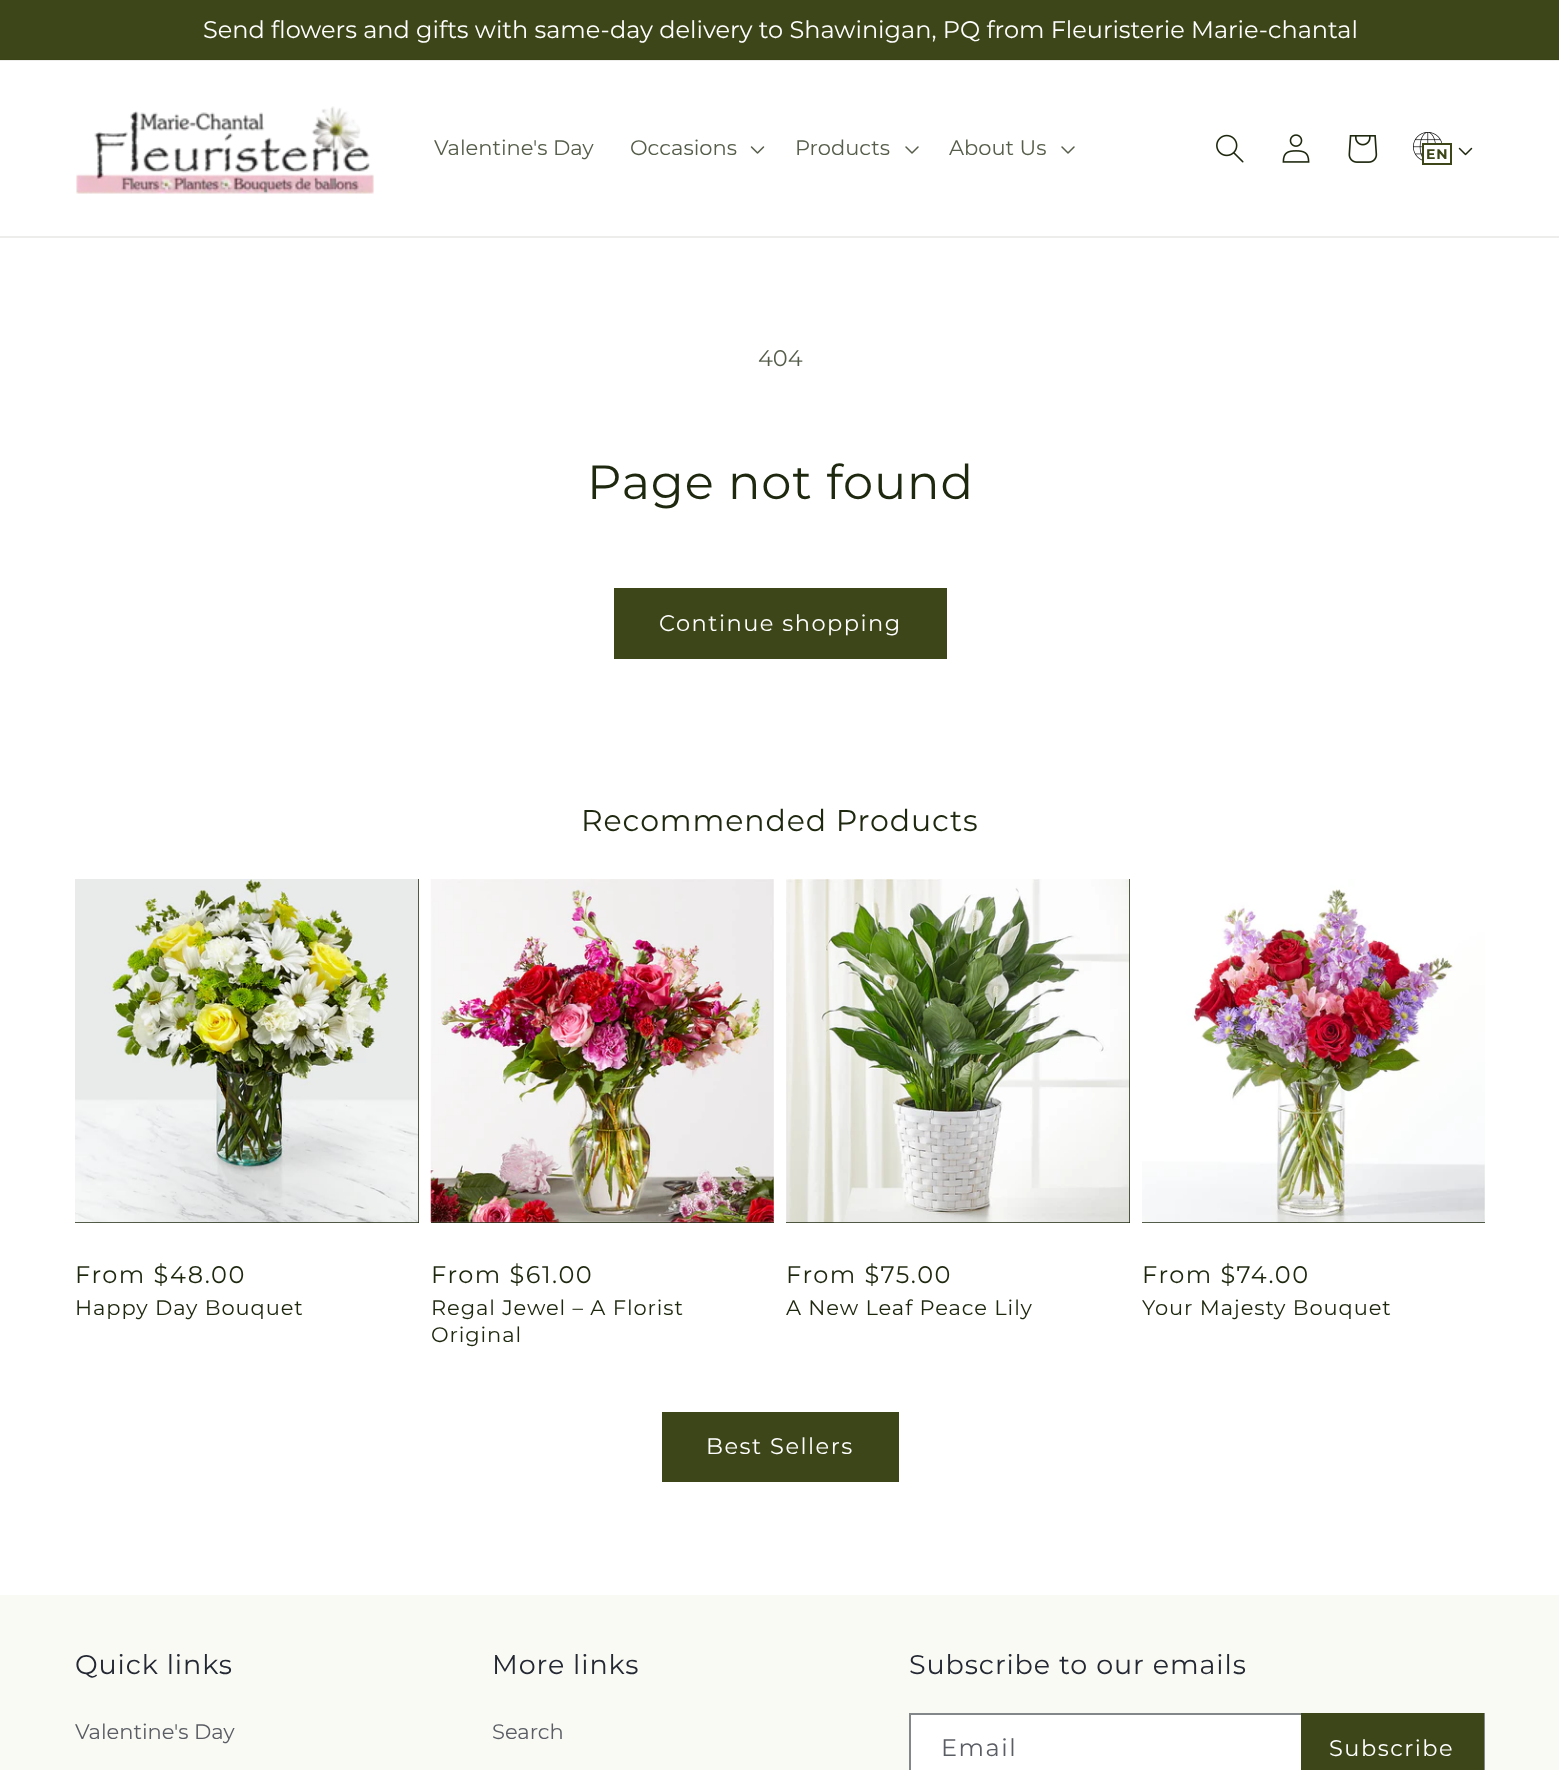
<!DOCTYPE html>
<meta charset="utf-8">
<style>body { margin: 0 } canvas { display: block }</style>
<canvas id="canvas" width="1559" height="1770"></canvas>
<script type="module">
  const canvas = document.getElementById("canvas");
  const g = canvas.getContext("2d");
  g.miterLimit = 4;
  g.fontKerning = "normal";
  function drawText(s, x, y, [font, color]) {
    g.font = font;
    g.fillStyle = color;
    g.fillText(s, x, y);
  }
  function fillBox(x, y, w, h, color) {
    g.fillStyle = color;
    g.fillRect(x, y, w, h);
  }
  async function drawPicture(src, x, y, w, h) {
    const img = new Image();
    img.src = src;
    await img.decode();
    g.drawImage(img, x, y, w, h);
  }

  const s1 = ["24px Montserrat", "#FFFFFF"];
  const s2 = ["21px Montserrat", "#565E4B"];
  const s3 = ["bold 14px Montserrat", "#3C4618"];
  const s4 = ["22.5px Montserrat", "#565E4B"];
  const s5 = ["48px Montserrat", "#1E280F"];
  const s6 = ["22.5px Montserrat", "#FFFFFF"];
  const s7 = ["30px Montserrat", "#1E280F"];
  const s8 = ["24px Montserrat", "#1E280F"];
  const s9 = ["21px Montserrat", "#1E280F"];
  const s10 = ["27px Montserrat", "#242833"];
  const s11 = ["21px Montserrat", "#5A5D64"];
  const s12 = ["24px Montserrat", "#5A5D64"];

  fillBox(0, 0, 1559, 1770, "#FFFFFF");
  fillBox(0, 60, 1559, 1, "#EDEEEC");
  fillBox(0, 0, 1559, 59, "#3C4618");
  fillBox(0, 59, 1559, 1, "#3A4417");
  drawText("Send flowers and gifts with same-day delivery to Shawinigan, PQ from Fleuristerie Marie-chantal", 203, 38, s1);
  fillBox(0, 236, 1559, 2, "#EDEEEC");
  await drawPicture("pic1.png", 76, 106, 298, 88);
  drawText("Valentine's Day", 434, 155, s2);
  drawText("Occasions", 630, 155, s2);
  await drawPicture("pic2.png", 750, 146, 15, 8);
  drawText("Products", 795, 155, s2);
  await drawPicture("pic3.png", 905, 146, 14, 8);
  drawText("About Us", 949, 155, s2);
  await drawPicture("pic3.png", 1061, 146, 14, 8);
  await drawPicture("pic4.png", 1216, 134, 28, 29);
  await drawPicture("pic5.png", 1282, 134, 28, 29);
  await drawPicture("pic6.png", 1348, 135, 30, 28);
  await drawPicture("pic7.png", 1413, 132, 29, 29);
  await drawPicture("pic8.png", 1458, 147, 15, 9);
  fillBox(1424, 145, 18, 16, "#FFFFFF");
  g.strokeStyle = "#3C4618";
  g.lineWidth = 2;
  g.strokeRect(1423, 144, 28, 20);
  g.letterSpacing = "0.9px";
  drawText("EN", 1426, 159, s3);
  g.letterSpacing = "0px";
  drawText("404", 758, 366, s4);
  g.letterSpacing = "0.9px";
  drawText("Page not found", 587, 499, s5);
  fillBox(614, 588, 333, 71, "#3C4618");
  g.letterSpacing = "1.5px";
  drawText("Continue shopping", 659, 631, s6);
  g.letterSpacing = "0.9px";
  drawText("Recommended Products", 581, 831, s7);
  fillBox(75, 879, 344, 344, "#1E280F");
  await drawPicture("pic9.png", 75, 879, 344, 344);
  g.letterSpacing = "1.5px";
  drawText("From $48.00", 75, 1283, s8);
  g.letterSpacing = "0.9px";
  drawText("Happy Day Bouquet", 75, 1315, s9);
  fillBox(431, 1222, 343, 1, "#1E280F");
  await drawPicture("pic10.png", 430, 879, 344, 344);
  g.letterSpacing = "1.5px";
  drawText("From $61.00", 431, 1283, s8);
  g.letterSpacing = "0.9px";
  drawText("Regal Jewel – A Florist", 431, 1315, s9);
  drawText("Original", 431, 1342, s9);
  fillBox(786, 879, 344, 344, "#1E280F");
  await drawPicture("pic11.png", 786, 879, 344, 344);
  g.letterSpacing = "1.5px";
  drawText("From $75.00", 786, 1283, s8);
  g.letterSpacing = "0.9px";
  drawText("A New Leaf Peace Lily", 786, 1315, s9);
  fillBox(1142, 1222, 343, 1, "#1E280F");
  await drawPicture("pic12.png", 1142, 879, 343, 344);
  g.letterSpacing = "1.5px";
  drawText("From $74.00", 1142, 1283, s8);
  g.letterSpacing = "0.9px";
  drawText("Your Majesty Bouquet", 1142, 1315, s9);
  fillBox(662, 1412, 237, 70, "#3C4618");
  g.letterSpacing = "1.5px";
  drawText("Best Sellers", 706, 1454, s6);
  fillBox(0, 1595, 1559, 175, "#FAFAF5");
  g.letterSpacing = "0.9px";
  drawText("Quick links", 75, 1674, s10);
  g.letterSpacing = "0px";
  drawText("Valentine's Day", 75, 1739, s11);
  g.letterSpacing = "0.9px";
  drawText("More links", 492, 1674, s10);
  g.letterSpacing = "0px";
  drawText("Search", 492, 1739, s11);
  g.letterSpacing = "0.9px";
  drawText("Subscribe to our emails", 909, 1674, s10);
  fillBox(911, 1715, 390, 55, "#FFFFFF");
  g.strokeStyle = "#84878A";
  g.strokeRect(910, 1714, 574, 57);
  g.letterSpacing = "1.5px";
  drawText("Email", 941, 1756, s12);
  fillBox(1301, 1713, 183, 57, "#3C4618");
  drawText("Subscribe", 1329, 1756, s6);
</script>
